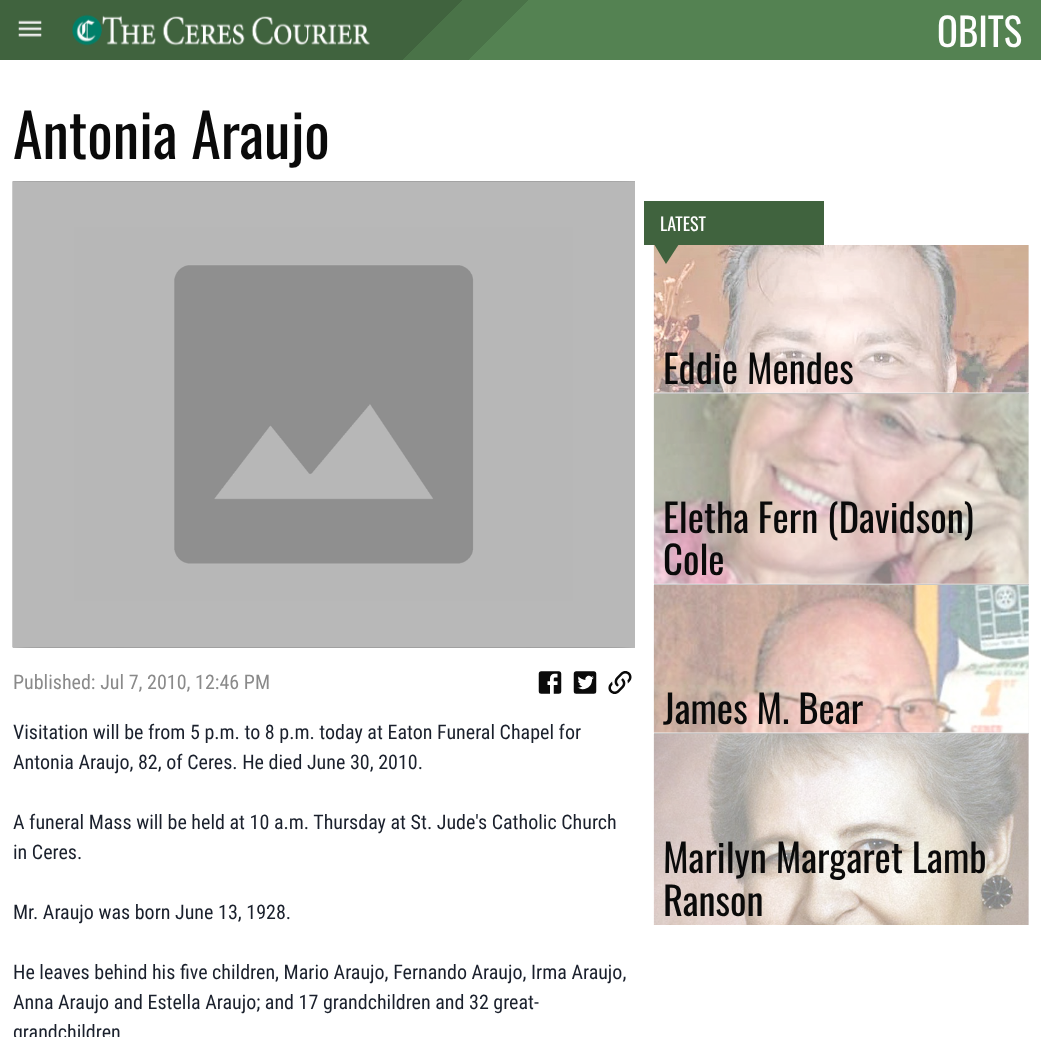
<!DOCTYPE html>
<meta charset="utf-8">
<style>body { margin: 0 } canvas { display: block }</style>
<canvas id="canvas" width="1041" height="1037"></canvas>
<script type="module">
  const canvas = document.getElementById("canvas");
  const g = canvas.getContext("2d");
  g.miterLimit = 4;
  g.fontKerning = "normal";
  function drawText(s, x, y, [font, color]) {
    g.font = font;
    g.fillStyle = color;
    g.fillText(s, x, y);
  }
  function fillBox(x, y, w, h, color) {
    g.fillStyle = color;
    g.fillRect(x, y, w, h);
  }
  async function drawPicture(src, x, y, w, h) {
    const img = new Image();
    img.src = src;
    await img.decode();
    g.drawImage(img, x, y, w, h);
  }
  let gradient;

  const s1 = ["38.75px Oswald", "#FEFEFE"];
  const s2 = ["60px Oswald", "#0A0A0A"];
  const s3 = ["20px Roboto Condensed", "#8A8A8A"];
  const s4 = ["20px Roboto Condensed", "#1A202C"];
  const s5 = ["18px Oswald", "#FEFEFE"];
  const s6 = ["38.75px Oswald", "#0A0A0A"];

  fillBox(0, 0, 1041, 1037, "#FFFFFF");
  gradient = g.createLinearGradient(245, -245, 796, 305);
  gradient.addColorStop(0.42, "#40633E");
  gradient.addColorStop(0.42, "#4A7348");
  gradient.addColorStop(0.48, "#4A7348");
  gradient.addColorStop(0.48, "#548252");
  g.fillStyle = gradient;
  g.fillRect(0, 0, 1041, 60);
  await drawPicture("pic1.png", 18, 20, 24, 17);
  await drawPicture("pic2.png", 72, 14, 298, 32);
  drawText("OBITS", 937, 47, s1);
  drawText("Antonia Araujo", 13, 159, s2);
  await drawPicture("pic4.png", 12, 181, 623, 467);
  await drawPicture("pic5.png", 538, 671, 24, 23);
  await drawPicture("pic6.png", 573, 671, 24, 23);
  await drawPicture("pic7.png", 608, 671, 24, 23);
  fillBox(654, 585, 375, 148, "#F3F3F3");
  fillBox(654, 394, 375, 190, "#F3F3F3");
  fillBox(654, 245, 375, 148, "#F3F3F3");
  fillBox(654, 393, 375, 1, "#CACACA");
  await drawPicture("pic8.png", 653, 245, 376, 148);
  fillBox(654, 584, 375, 1, "#CACACA");
  await drawPicture("pic9.png", 653, 393, 376, 191);
  await drawPicture("pic10.png", 653, 585, 376, 148);
  g.save();
  g.beginPath();
  g.rect(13, 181, 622, 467);
  g.clip();
  g.fillStyle = "rgba(0, 0, 0, 0.4)";
  g.filter = "blur(10px)";
  g.beginPath();
  g.rect(13, 181, 622, 467);
  g.fill();
  g.filter = "none";
  g.restore();
  await drawPicture("pic3.png", 12, 181, 623, 466);
  drawText("Published: Jul 7, 2010, 12:46 PM", 13, 689, s3);
  drawText("Visitation will be from 5 p.m. to 8 p.m. today at Eaton Funeral Chapel for", 13, 739, s4);
  drawText("Antonia Araujo, 82, of Ceres. He died June 30, 2010.", 13, 769, s4);
  drawText("A funeral Mass will be held at 10 a.m. Thursday at St. Jude's Catholic Church", 13, 829, s4);
  drawText("in Ceres.", 13, 859, s4);
  drawText("Mr. Araujo was born June 13, 1928.", 13, 919, s4);
  drawText("He leaves behind his five children, Mario Araujo, Fernando Araujo, Irma Araujo,", 13, 979, s4);
  drawText("Anna Araujo and Estella Araujo; and 17 grandchildren and 32 great-", 13, 1009, s4);
  drawText("grandchildren", 13, 1039, s4);
  fillBox(644, 201, 180, 44, "#40633E");
  drawText("LATEST", 660, 231, s5);
  g.fillStyle = "#40633E";
  g.beginPath();
  g.moveTo(654, 244);
  g.lineTo(679, 244);
  g.lineTo(666, 264);
  g.closePath();
  g.fill();
  fillBox(1028, 734, 1, 191, "#F3F3F3");
  drawText("Eddie Mendes", 663, 384, s6);
  drawText("Eletha Fern (Davidson)", 663, 533, s6);
  drawText("Cole", 663, 575, s6);
  fillBox(654, 733, 375, 1, "#CACACA");
  drawText("James M. Bear", 663, 724, s6);
  await drawPicture("pic11.png", 653, 733, 376, 192);
  drawText("Marilyn Margaret Lamb", 663, 873, s6);
  drawText("Ranson", 663, 916, s6);
</script>
